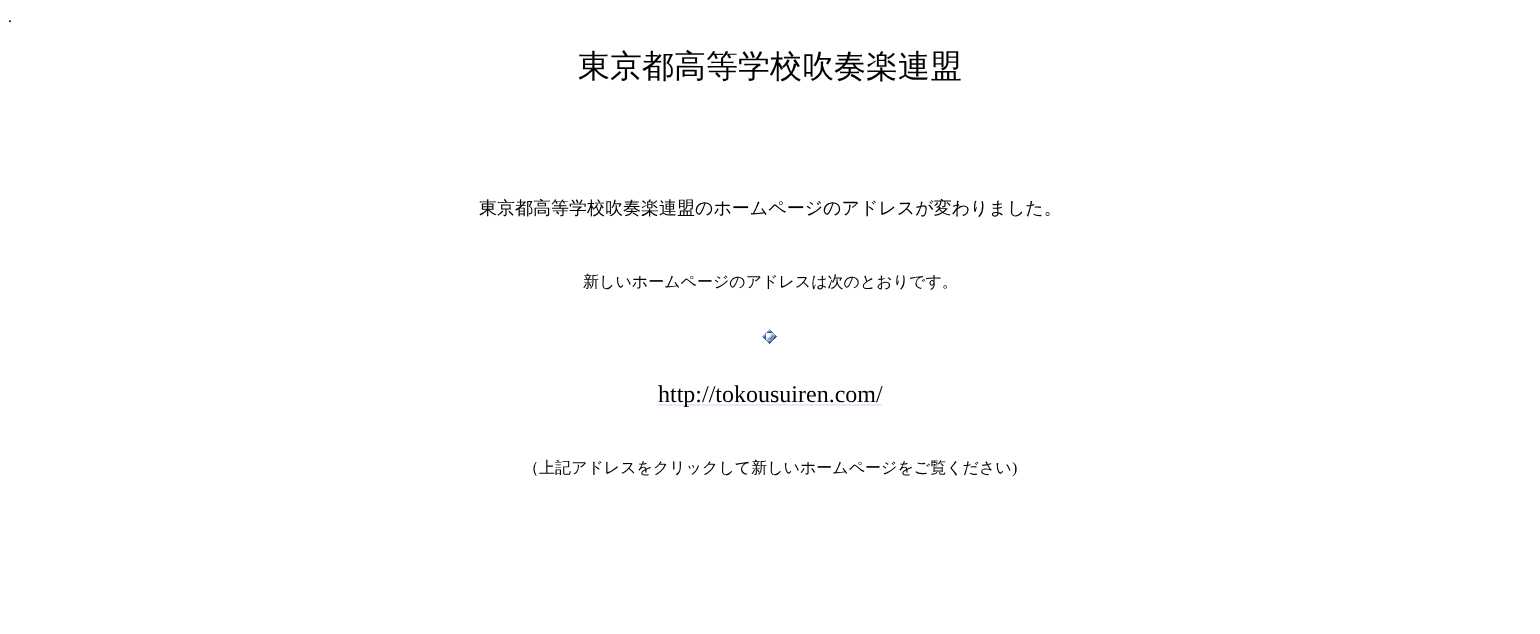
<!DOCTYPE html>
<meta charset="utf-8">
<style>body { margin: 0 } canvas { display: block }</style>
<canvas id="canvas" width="1540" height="634"></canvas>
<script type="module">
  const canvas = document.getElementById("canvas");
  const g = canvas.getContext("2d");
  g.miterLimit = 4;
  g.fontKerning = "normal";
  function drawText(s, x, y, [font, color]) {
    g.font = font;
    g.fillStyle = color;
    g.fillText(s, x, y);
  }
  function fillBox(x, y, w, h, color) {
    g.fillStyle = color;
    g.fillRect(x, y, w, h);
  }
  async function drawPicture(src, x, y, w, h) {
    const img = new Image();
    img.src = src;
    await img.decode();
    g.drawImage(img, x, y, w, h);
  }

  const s1 = ["16px Liberation Serif", "#000000"];
  const s2 = ["500 32px WenQuanYi Zen Hei", "#000000"];
  const s3 = ["500 18px WenQuanYi Zen Hei", "#000000"];
  const s4 = ["500 16px WenQuanYi Zen Hei", "#000000"];
  const s5 = ["24px Liberation Serif", "#000000"];

  fillBox(0, 0, 1540, 634, "#FFFFFF");
  drawText(".", 8, 22, s1);
  drawText("東京都高等学校吹奏楽連盟", 578, 77, s2);
  drawText("東京都高等学校吹奏楽連盟のホームページのアドレスが変わりました。", 479, 214, s3);
  drawText("新しいホームページのアドレスは次のとおりです。", 583, 287, s4);
  await drawPicture("pic1.png", 762, 329, 15, 15);
  fillBox(658, 404, 224, 2, "#E0ECFE");
  drawText("http://tokousuiren.com/", 658, 402, s5);
  drawText("（上記アドレスをクリックして新しいホームページをご覧ください", 523, 473, s4);
  drawText(")", 1012, 473, s1);
</script>
